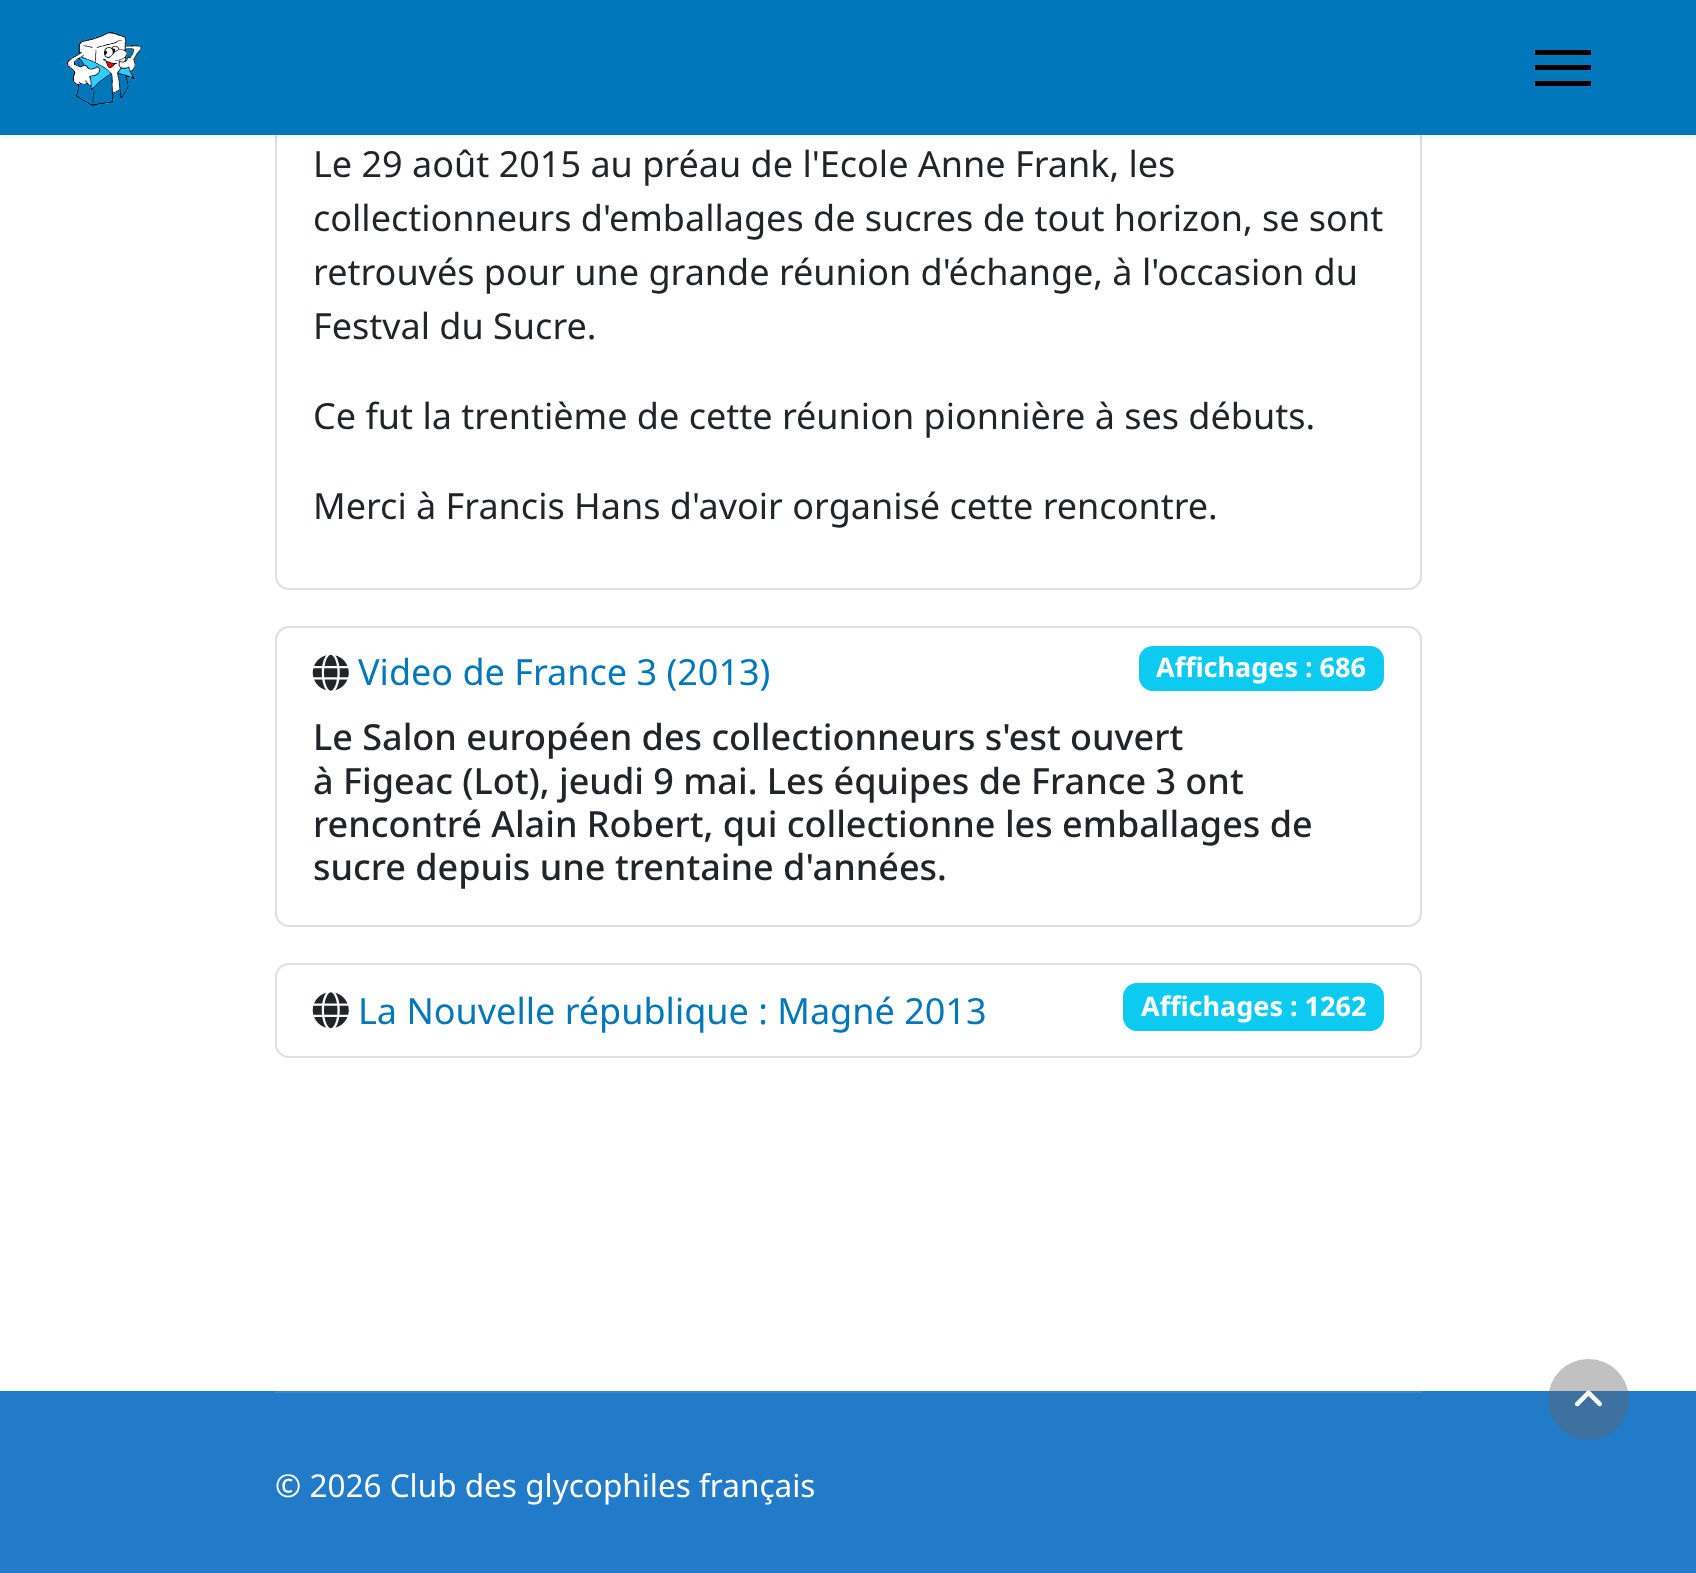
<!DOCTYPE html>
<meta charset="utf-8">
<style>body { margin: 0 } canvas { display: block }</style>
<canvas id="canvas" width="1696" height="1573"></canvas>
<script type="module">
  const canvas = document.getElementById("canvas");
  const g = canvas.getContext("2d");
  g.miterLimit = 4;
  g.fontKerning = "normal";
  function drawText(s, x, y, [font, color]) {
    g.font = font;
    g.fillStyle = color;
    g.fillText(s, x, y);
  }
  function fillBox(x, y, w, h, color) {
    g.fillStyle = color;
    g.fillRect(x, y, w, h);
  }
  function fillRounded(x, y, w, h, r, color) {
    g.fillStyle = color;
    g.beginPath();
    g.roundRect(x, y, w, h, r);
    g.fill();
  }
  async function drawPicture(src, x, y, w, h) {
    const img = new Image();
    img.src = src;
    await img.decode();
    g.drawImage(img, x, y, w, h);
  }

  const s1 = ["36px Noto Sans", "#212529"];
  const s2 = ["36px Noto Sans", "#0077BB"];
  const s3 = ["bold 27px Noto Sans", "#FFFFFF"];
  const s4 = ["500 36px Noto Sans", "#212529"];
  const s5 = ["31.5px Noto Sans", "#FFFFFF"];

  fillBox(0, 0, 1696, 1573, "#FFFFFF");
  g.beginPath();
  g.roundRect(276, 46, 1145, 543, 13);
  g.strokeStyle = "#DFDFDF";
  g.lineWidth = 2;
  g.stroke();
  g.fillStyle = "rgba(0, 0, 0, 0.1)";
  g.filter = "blur(4.5px)";
  g.beginPath();
  g.rect(0, 0, 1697, 135);
  g.fill();
  g.filter = "none";
  fillBox(0, 0, 1696, 135, "#0077BB");
  await drawPicture("pic1.png", 62, 32, 84, 74);
  fillBox(1535, 50, 56, 5, "#000000");
  fillBox(1535, 65, 56, 5, "#000000");
  fillBox(1535, 81, 56, 5, "#000000");
  drawText("Le 29 août 2015 au préau de l'Ecole Anne Frank, les", 313, 177, s1);
  drawText("collectionneurs d'emballages de sucres de tout horizon, se sont", 313, 231, s1);
  drawText("retrouvés pour une grande réunion d'échange, à l'occasion du", 313, 285, s1);
  drawText("Festval du Sucre.", 313, 339, s1);
  drawText("Ce fut la trentième de cette réunion pionnière à ses débuts.", 313, 429, s1);
  drawText("Merci à Francis Hans d'avoir organisé cette rencontre.", 313, 519, s1);
  g.beginPath();
  g.roundRect(276, 627, 1145, 299, 13);
  g.stroke();
  await drawPicture("pic2.png", 312, 654, 37, 37);
  drawText("Video de France 3 (2013)", 358, 685, s2);
  fillRounded(1139, 646, 245, 45, 14, "#0DCAF0");
  drawText("Affichages : 686", 1156, 677, s3);
  drawText("Le Salon européen des collectionneurs s'est ouvert", 313, 750, s4);
  drawText("à Figeac (Lot), jeudi 9 mai. Les équipes de France 3 ont", 313, 794, s4);
  drawText("rencontré Alain Robert, qui collectionne les emballages de", 313, 837, s4);
  drawText("sucre depuis une trentaine d'années.", 313, 880, s4);
  g.beginPath();
  g.roundRect(276, 964, 1145, 93, 13);
  g.stroke();
  await drawPicture("pic3.png", 312, 992, 37, 37);
  drawText("La Nouvelle république : Magné 2013", 358, 1024, s2);
  fillRounded(1123, 983, 261, 48, 14, "#0DCAF0");
  drawText("Affichages : 1262", 1141, 1016, s3);
  fillBox(0, 1391, 1696, 182, "#227BC9");
  fillBox(275, 1391, 1147, 2, "#3888CE");
  drawText("© 2026 Club des glycophiles français", 275, 1497, s5);
  g.fillStyle = "rgba(100, 100, 100, 0.4)";
  g.beginPath();
  g.arc(1588.5, 1399.5, 40.5, 0, Math.PI * 2);
  g.fill();
  await drawPicture("pic4.png", 1575, 1390, 27, 17);
</script>
